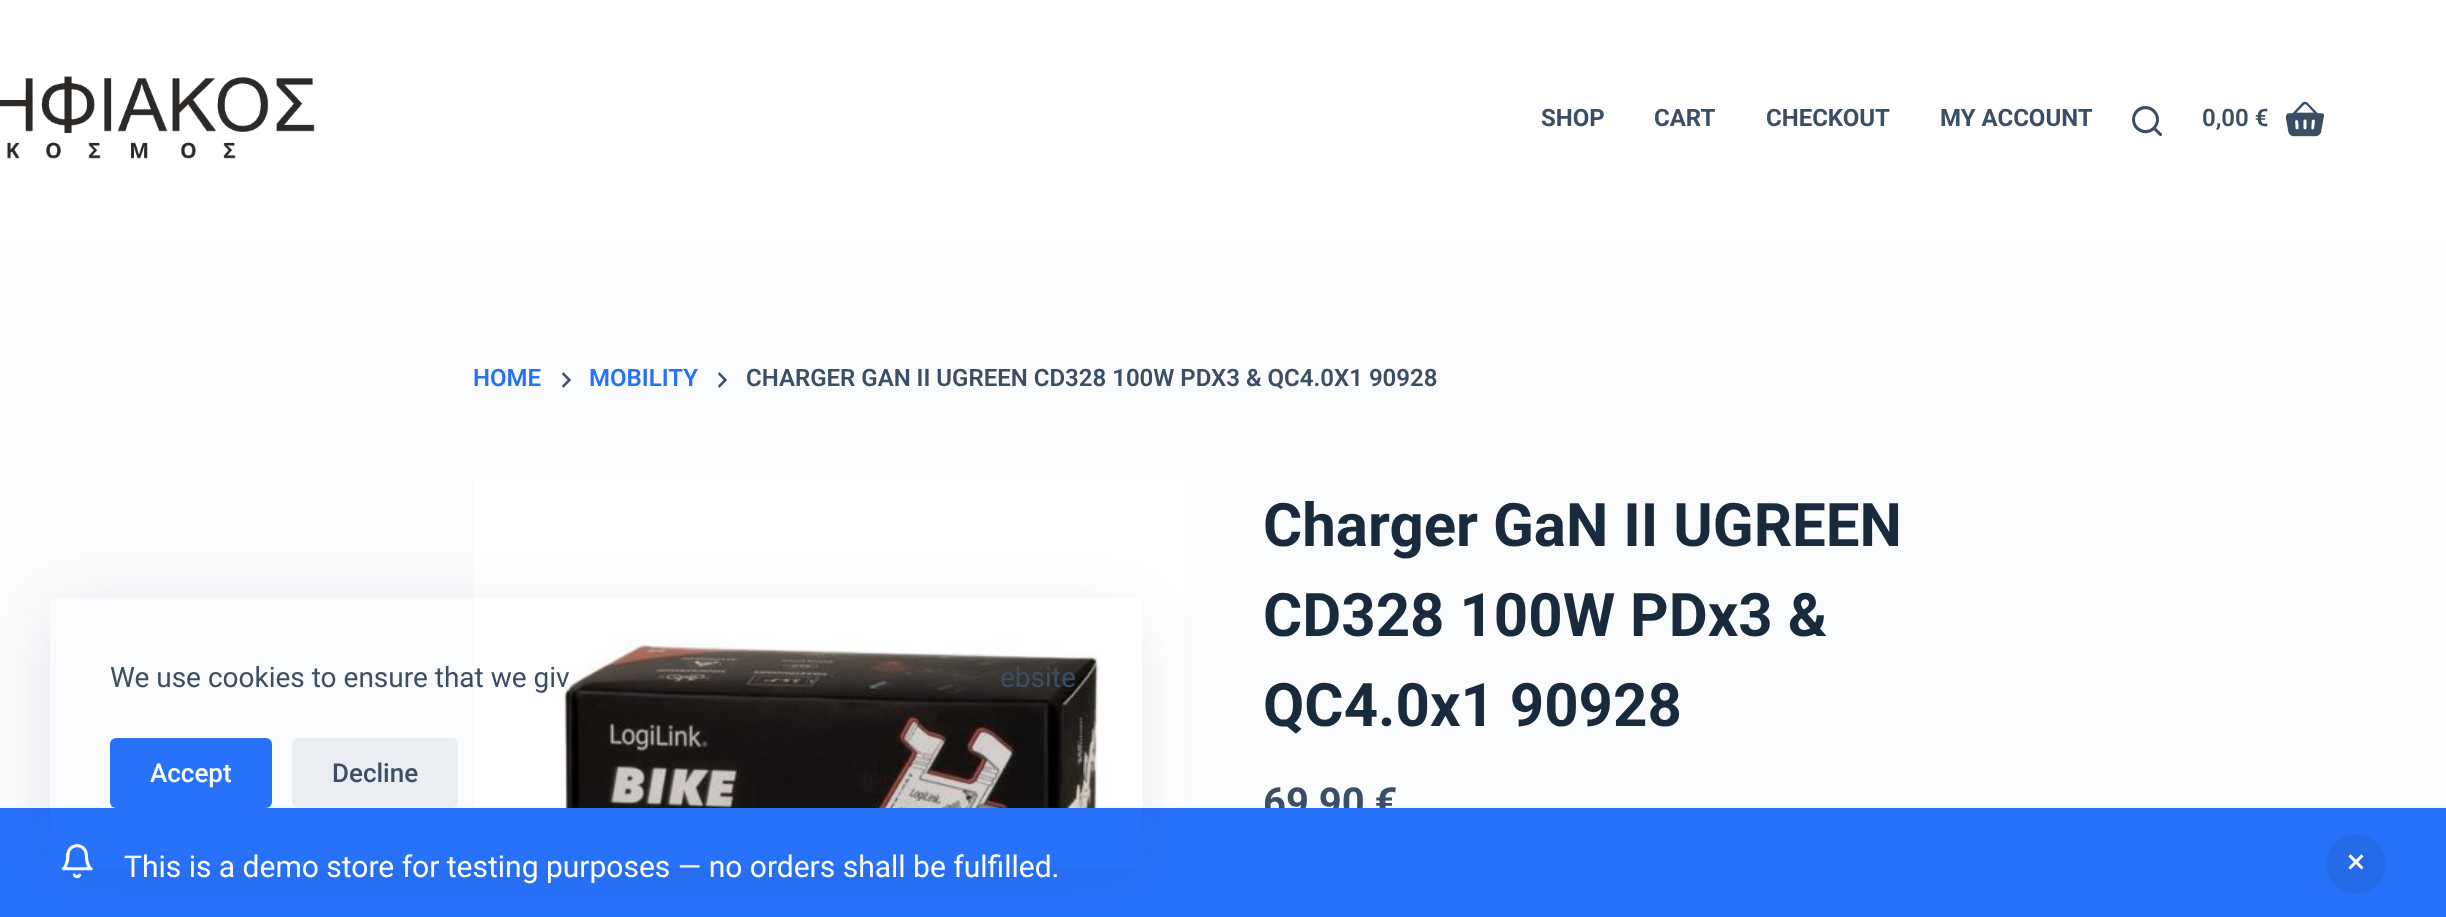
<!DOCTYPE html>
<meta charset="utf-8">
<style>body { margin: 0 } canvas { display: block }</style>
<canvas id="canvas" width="2446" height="917"></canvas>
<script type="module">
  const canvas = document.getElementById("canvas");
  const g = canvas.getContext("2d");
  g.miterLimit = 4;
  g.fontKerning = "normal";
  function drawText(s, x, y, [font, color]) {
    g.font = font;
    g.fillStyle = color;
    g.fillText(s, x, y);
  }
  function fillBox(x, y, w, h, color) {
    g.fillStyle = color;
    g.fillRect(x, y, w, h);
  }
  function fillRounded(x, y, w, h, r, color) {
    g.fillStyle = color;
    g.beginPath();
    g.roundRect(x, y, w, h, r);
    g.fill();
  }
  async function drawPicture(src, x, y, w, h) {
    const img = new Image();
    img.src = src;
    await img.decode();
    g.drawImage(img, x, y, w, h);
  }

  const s1 = ["bold 24px Roboto", "#3A4F66"];
  const s2 = ["600 24px Roboto", "#3A4F66"];
  const s3 = ["600 24px Roboto", "#2872FA"];
  const s4 = ["bold 60px Roboto", "#192A3D"];
  const s5 = ["bold 40px Roboto", "#3A4F66"];
  const s6 = ["28px Roboto", "#3A4F66"];
  const s7 = ["500 26px Roboto", "#FFFFFF"];
  const s8 = ["500 26px Roboto", "#3A4F66"];
  const s9 = ["30px Roboto", "#FFFFFF"];
  const s10 = ["34px Roboto", "#FFFFFF"];

  fillBox(0, 0, 2446, 917, "#FAFBFC");
  fillBox(0, 0, 2446, 240, "#FFFFFF");
  await drawPicture("pic1.png", 0, 76, 315, 83);
  drawText("SHOP", 1541, 126, s1);
  drawText("CART", 1654, 126, s1);
  drawText("CHECKOUT", 1766, 126, s1);
  drawText("MY ACCOUNT", 1940, 126, s1);
  await drawPicture("pic2.png", 2132, 106, 30, 30);
  drawText("0,00 €", 2202, 126, s2);
  await drawPicture("pic3.png", 2286, 101, 38, 36);
  drawText("HOME", 473, 386, s3);
  await drawPicture("pic4.png", 562, 372, 10, 16);
  drawText("MOBILITY", 589, 386, s3);
  await drawPicture("pic4.png", 718, 372, 10, 16);
  drawText("CHARGER GAN II UGREEN CD328 100W PDX3 & QC4.0X1 90928", 746, 386, s2);
  await drawPicture("pic5.png", 474, 480, 710, 328);
  drawText("Charger GaN II UGREEN", 1263, 546, s4);
  drawText("CD328 100W PDx3 &", 1263, 636, s4);
  drawText("QC4.0x1 90928", 1263, 726, s4);
  drawText("69,90 €", 1263, 816, s5);
  fillBox(0, 808, 2446, 109, "#2872FA");
  await drawPicture("pic6.png", 61, 844, 32, 35);
  g.save();
  g.beginPath();
  g.moveTo(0, 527);
  g.lineTo(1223, 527);
  g.lineTo(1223, 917);
  g.lineTo(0, 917);
  g.closePath();
  g.moveTo(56, 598);
  g.lineTo(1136, 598);
  g.bezierCurveTo(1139.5, 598, 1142, 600.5, 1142, 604);
  g.lineTo(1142, 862);
  g.bezierCurveTo(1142, 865.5, 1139.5, 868, 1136, 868);
  g.lineTo(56, 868);
  g.bezierCurveTo(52.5, 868, 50, 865.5, 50, 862);
  g.lineTo(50, 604);
  g.bezierCurveTo(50, 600.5, 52.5, 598, 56, 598);
  g.closePath();
  g.clip("evenodd");
  g.fillStyle = "rgba(34, 56, 101, 0.15)";
  g.filter = "blur(30px)";
  g.beginPath();
  g.rect(60, 618, 1072, 250);
  g.fill();
  g.filter = "none";
  g.restore();
  drawText("We use cookies to ensure that we giv", 110, 687, s6);
  drawText("ebsite", 1000, 687, s6);
  fillRounded(110, 738, 162, 70, 6, "#2872FA");
  drawText("Accept", 150, 782, s7);
  fillRounded(292, 738, 166, 70, 6, "#EAEEF2");
  drawText("Decline", 332, 782, s8);
  drawText("This is a demo store for testing purposes — no orders shall be fulfilled.", 124, 877, s9);
  g.fillStyle = "#256AE9";
  g.beginPath();
  g.arc(2356, 864, 30, 0, Math.PI * 2);
  g.fill();
  drawText("×", 2347, 873, s10);
</script>
